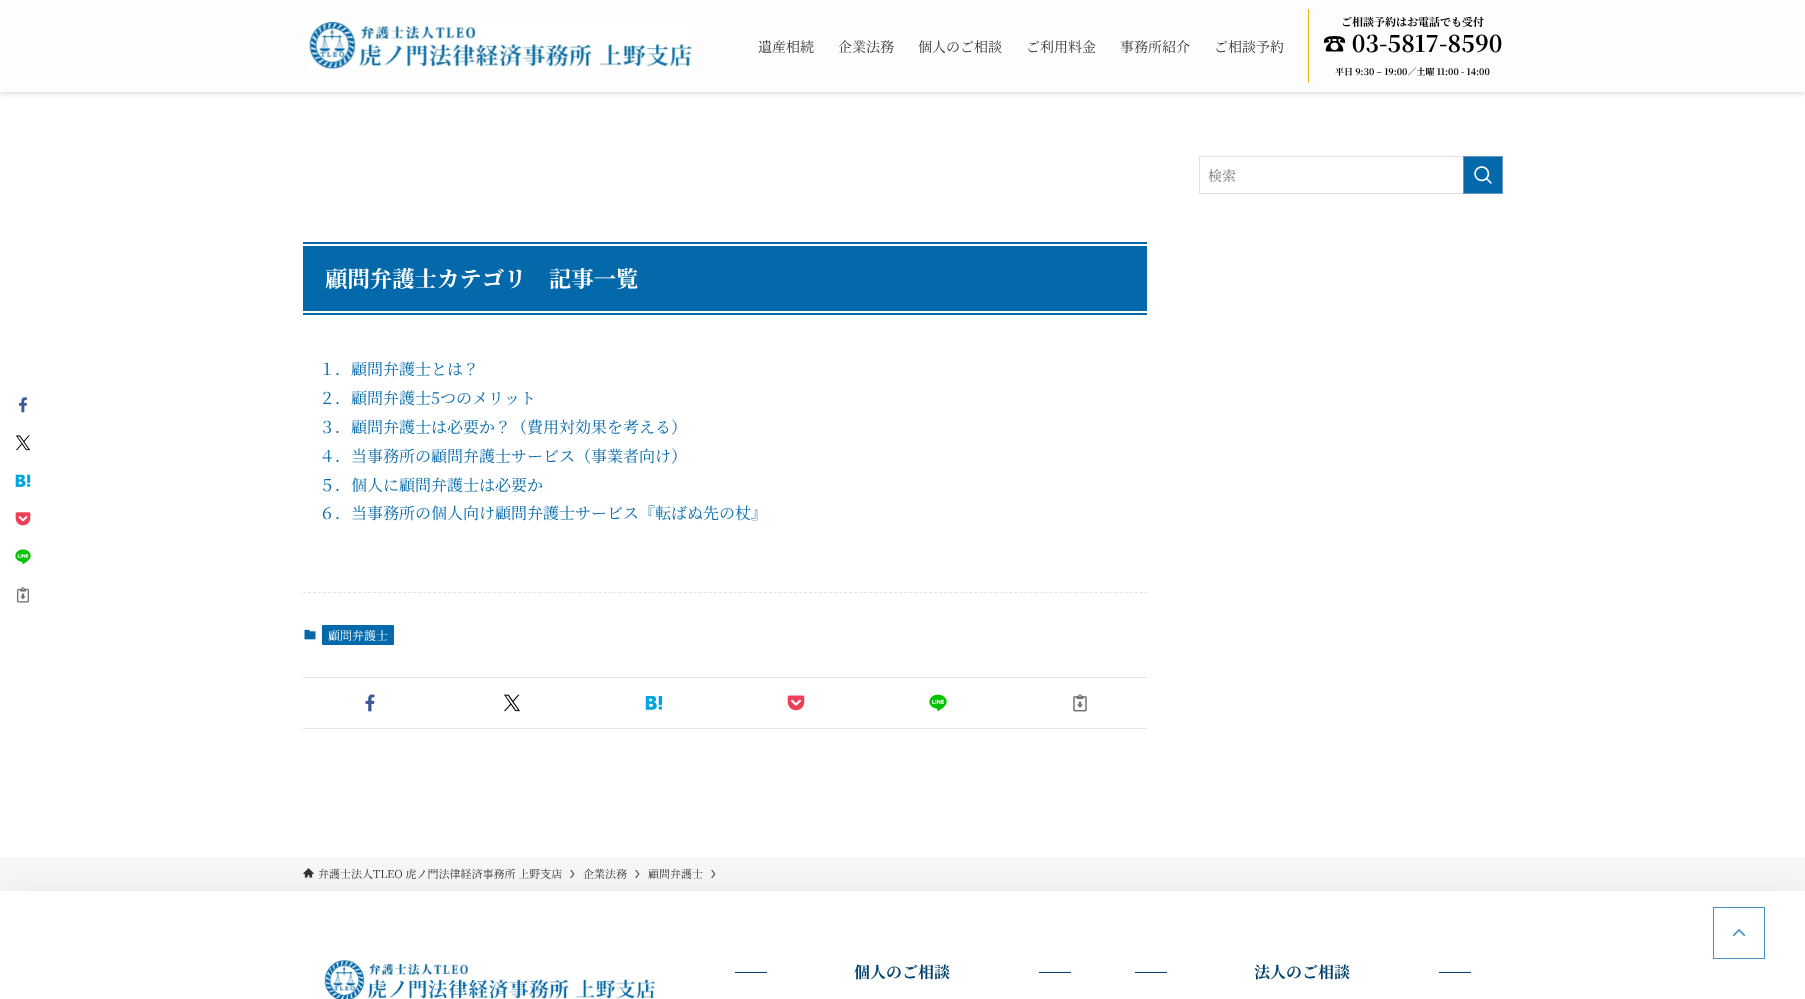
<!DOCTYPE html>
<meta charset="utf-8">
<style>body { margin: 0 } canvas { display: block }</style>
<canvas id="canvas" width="1805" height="999"></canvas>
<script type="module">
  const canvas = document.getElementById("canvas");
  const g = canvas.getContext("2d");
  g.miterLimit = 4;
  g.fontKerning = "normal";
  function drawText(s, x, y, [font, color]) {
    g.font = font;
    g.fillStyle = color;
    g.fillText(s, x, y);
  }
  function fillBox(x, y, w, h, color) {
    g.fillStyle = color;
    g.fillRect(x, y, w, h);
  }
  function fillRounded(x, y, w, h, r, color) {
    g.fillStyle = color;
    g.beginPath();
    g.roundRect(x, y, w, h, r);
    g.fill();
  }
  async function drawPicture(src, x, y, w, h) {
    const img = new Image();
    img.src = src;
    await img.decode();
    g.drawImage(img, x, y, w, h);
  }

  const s1 = ["14px Noto Serif JP", "#333333"];
  const s2 = ["bold 11px Noto Serif JP", "#000000"];
  const s3 = ["bold 23px Noto Serif JP", "#000000"];
  const s4 = ["bold 9px Noto Serif JP", "#000000"];
  const s5 = ["14px Noto Serif JP", "#757575"];
  const s6 = ["bold 22.4px Noto Serif JP", "#FFFFFF"];
  const s7 = ["16px Noto Serif JP", "#0469AA"];
  const s8 = ["12px Noto Serif JP", "#FFFFFF"];
  const s9 = ["11px Noto Serif JP", "#333333"];
  const s10 = ["bold 16px Noto Serif JP", "#02436D"];

  fillBox(0, 0, 1805, 999, "#FFFFFF");
  g.fillStyle = "rgba(0, 0, 0, 0.12)";
  g.filter = "blur(2px)";
  g.beginPath();
  g.rect(0, 2, 1805, 92);
  g.fill();
  g.filter = "none";
  fillBox(0, 0, 1805, 92, "#FDFDFD");
  await drawPicture("pic1.png", 309, 21, 383, 49);
  drawText("遺産相続", 758, 52, s1);
  drawText("企業法務", 838, 52, s1);
  drawText("個人のご相談", 918, 52, s1);
  drawText("ご利用料金", 1026, 52, s1);
  drawText("事務所紹介", 1120, 52, s1);
  drawText("ご相談予約", 1214, 52, s1);
  fillBox(1308, 9, 1, 74, "#E7B214");
  drawText("ご相談予約はお電話でも受付", 1341, 26, s2);
  drawText("☎︎ 03-5817-8590", 1323, 52, s3);
  drawText("平日 9:30 – 19:00／土曜 11:00 - 14:00", 1335, 75, s4);
  g.strokeStyle = "#E3E3E3";
  g.strokeRect(1199.5, 156.5, 303, 37);
  drawText("検索", 1208, 181, s5);
  g.fillStyle = "#0469AA";
  g.beginPath();
  g.rect(1463.5, 156.5, 39, 37);
  g.fill();
  g.strokeStyle = "#6698B9";
  g.stroke();
  await drawPicture("pic2.png", 1474, 166, 18, 18);
  await drawPicture("pic3.png", 19, 397, 9, 16);
  await drawPicture("pic4.png", 15, 435, 15, 16);
  await drawPicture("pic5.png", 15, 474, 16, 13);
  await drawPicture("pic6.png", 15, 512, 16, 14);
  await drawPicture("pic7.png", 15, 549, 16, 16);
  await drawPicture("pic8.png", 17, 587, 12, 16);
  fillBox(303, 246, 844, 65, "#0469AA");
  fillBox(303, 242, 844, 2, "#0469AA");
  fillBox(303, 313, 844, 2, "#0469AA");
  drawText("顧問弁護士カテゴリ　記事一覧", 325, 287, s6);
  drawText("１．顧問弁護士とは？", 319, 375, s7);
  drawText("２．顧問弁護士5つのメリット", 319, 404, s7);
  drawText("３．顧問弁護士は必要か？（費用対効果を考える）", 319, 433, s7);
  drawText("４．当事務所の顧問弁護士サービス（事業者向け）", 319, 462, s7);
  drawText("５．個人に顧問弁護士は必要か", 319, 491, s7);
  drawText("６．当事務所の個人向け顧問弁護士サービス『転ばぬ先の杖』", 319, 519, s7);
  g.beginPath();
  g.moveTo(303, 592.5);
  g.lineTo(1147, 592.5);
  g.strokeStyle = "#E3E3E3";
  g.setLineDash([3, 2.01]);
  g.stroke();
  await drawPicture("pic9.png", 304, 629, 12, 11);
  fillRounded(322, 625, 72, 20, 1, "#0469AA");
  drawText("顧問弁護士", 328, 640, s8);
  fillBox(303, 677, 844, 1, "#E3E3E3");
  fillBox(303, 728, 844, 1, "#E3E3E3");
  await drawPicture("pic10.png", 365, 694, 10, 18);
  await drawPicture("pic11.png", 504, 694, 16, 18);
  await drawPicture("pic12.png", 645, 696, 18, 14);
  await drawPicture("pic13.png", 787, 695, 18, 16);
  await drawPicture("pic14.png", 929, 694, 18, 18);
  await drawPicture("pic15.png", 1073, 694, 14, 18);
  fillBox(0, 857, 1805, 34, "#F7F7F7");
  await drawPicture("pic16.png", 303, 868, 11, 10);
  drawText("弁護士法人TLEO 虎ノ門法律経済事務所 上野支店", 318, 878, s9);
  g.fillStyle = "#5A5A5A";
  g.beginPath();
  g.moveTo(571.5, 870);
  g.lineTo(570, 870);
  g.lineTo(573, 874);
  g.lineTo(570, 878);
  g.lineTo(571.5, 878);
  g.lineTo(574.5, 874);
  g.closePath();
  g.fill();
  drawText("企業法務", 583, 878, s9);
  g.fillStyle = "#5A5A5A";
  g.beginPath();
  g.moveTo(636.5, 870);
  g.lineTo(635, 870);
  g.lineTo(638, 874);
  g.lineTo(635, 878);
  g.lineTo(636.5, 878);
  g.lineTo(639.5, 874);
  g.closePath();
  g.fill();
  drawText("顧問弁護士", 648, 878, s9);
  g.fillStyle = "#5A5A5A";
  g.beginPath();
  g.moveTo(712.5, 870);
  g.lineTo(711, 870);
  g.lineTo(714, 874);
  g.lineTo(711, 878);
  g.lineTo(712.5, 878);
  g.lineTo(715.5, 874);
  g.closePath();
  g.fill();
  g.fillStyle = "rgba(0, 0, 0, 0.07)";
  g.filter = "blur(15px)";
  g.beginPath();
  g.rect(1, 892, 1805, 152);
  g.fill();
  g.filter = "none";
  fillBox(0, 891, 1805, 108, "#FFFFFF");
  g.strokeStyle = "#438FBF";
  g.setLineDash([]);
  g.strokeRect(1713.5, 907.5, 51, 51);
  await drawPicture("pic17.png", 1732, 929, 14, 8);
  await drawPicture("pic18.png", 324, 960, 332, 39);
  fillBox(735, 972, 32, 1, "#02436D");
  drawText("個人のご相談", 854, 978, s10);
  fillBox(1039, 972, 32, 1, "#02436D");
  fillBox(1135, 972, 32, 1, "#02436D");
  drawText("法人のご相談", 1254, 978, s10);
  fillBox(1439, 972, 32, 1, "#02436D");
</script>
